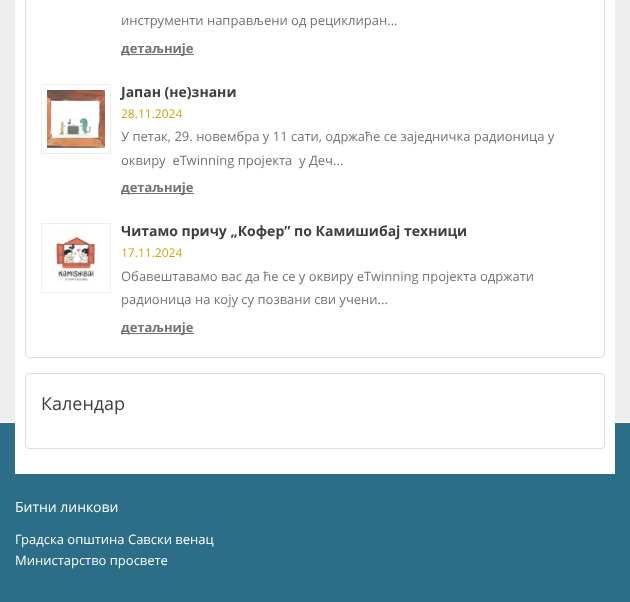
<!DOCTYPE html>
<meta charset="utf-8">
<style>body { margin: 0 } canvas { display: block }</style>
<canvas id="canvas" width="630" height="602"></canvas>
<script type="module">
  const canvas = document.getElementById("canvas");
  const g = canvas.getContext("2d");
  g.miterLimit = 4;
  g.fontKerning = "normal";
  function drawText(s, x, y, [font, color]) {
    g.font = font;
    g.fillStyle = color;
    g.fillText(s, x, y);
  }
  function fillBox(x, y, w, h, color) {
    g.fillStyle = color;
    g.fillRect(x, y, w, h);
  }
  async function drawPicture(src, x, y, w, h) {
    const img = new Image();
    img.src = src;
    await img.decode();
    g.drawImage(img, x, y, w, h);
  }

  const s1 = ["13px Open Sans", "#737373"];
  const s2 = ["bold 13px Open Sans", "#737373"];
  const s3 = ["bold 14px Open Sans", "#3E3E3E"];
  const s4 = ["12px Open Sans", "#D2A10A"];
  const s5 = ["18px Open Sans", "#3E3E3E"];
  const s6 = ["14px Open Sans", "#FFFFFF"];
  const s7 = ["13px Open Sans", "#FFFFFF"];

  fillBox(0, 0, 630, 602, "#EEEEEE");
  fillBox(0, 423, 630, 179, "#2C6E87");
  fillBox(0, 422, 630, 1, "#FFFFFF");
  fillBox(25, 0, 580, 464, "#FFFFFF");
  g.beginPath();
  g.moveTo(20, -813);
  g.lineTo(610, -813);
  g.lineTo(610, 469);
  g.lineTo(20, 469);
  g.closePath();
  g.strokeStyle = "#FFFFFF";
  g.lineWidth = 10;
  g.stroke();
  g.beginPath();
  g.roundRect(25.5, -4.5, 579, 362, 3.5);
  g.strokeStyle = "#DDDDDD";
  g.lineWidth = 1;
  g.stroke();
  drawText("инструменти направљени од рециклиран...", 121, 25, s1);
  fillBox(121, 54, 73, 1, "#737373");
  drawText("детаљније", 121, 53, s2);
  g.strokeStyle = "#EEEEEE";
  g.strokeRect(41.5, 84.5, 69, 69);
  await drawPicture("pic1.png", 47, 90, 58, 58);
  drawText("Јапан (не)знани", 121, 97, s3);
  drawText("28.11.2024", 121, 118, s4);
  drawText("У петак, 29. новембра у 11 сати, одржаће се заједничка радионица у", 121, 141, s1);
  drawText("оквиру  eTwinning пројекта  у Деч...", 121, 165, s1);
  fillBox(121, 193, 73, 1, "#737373");
  drawText("детаљније", 121, 192, s2);
  g.strokeRect(41.5, 223.5, 69, 69);
  await drawPicture("pic2.png", 47, 229, 53, 53);
  drawText("Читамо причу „Кофер” по Камишибај техници", 121, 236, s3);
  drawText("17.11.2024", 121, 257, s4);
  drawText("Обавештавамо вас да ће се у оквиру eTwinning пројекта одржати", 121, 281, s1);
  drawText("радионица на коју су позвани сви учени...", 121, 304, s1);
  fillBox(121, 333, 73, 1, "#737373");
  drawText("детаљније", 121, 332, s2);
  g.beginPath();
  g.roundRect(25.5, 373.5, 579, 75, 3.5);
  g.strokeStyle = "#DDDDDD";
  g.stroke();
  drawText("Календар", 41, 410, s5);
  drawText("Битни линкови", 15, 512, s6);
  drawText("Градска општина Савски венац", 15, 544, s7);
  drawText("Министарство просвете", 15, 565, s7);
</script>
